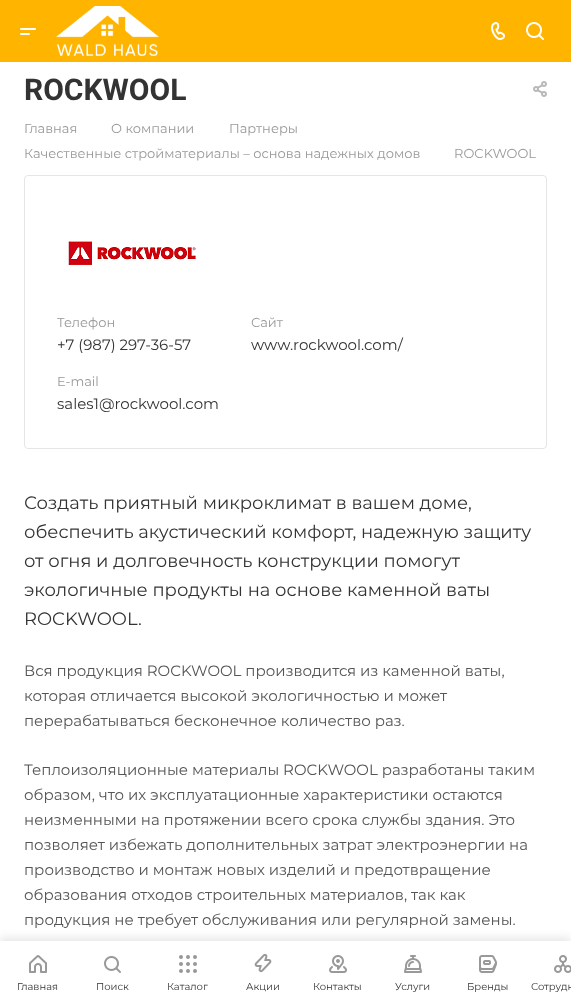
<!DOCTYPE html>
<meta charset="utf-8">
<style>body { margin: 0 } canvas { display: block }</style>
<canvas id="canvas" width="571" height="997"></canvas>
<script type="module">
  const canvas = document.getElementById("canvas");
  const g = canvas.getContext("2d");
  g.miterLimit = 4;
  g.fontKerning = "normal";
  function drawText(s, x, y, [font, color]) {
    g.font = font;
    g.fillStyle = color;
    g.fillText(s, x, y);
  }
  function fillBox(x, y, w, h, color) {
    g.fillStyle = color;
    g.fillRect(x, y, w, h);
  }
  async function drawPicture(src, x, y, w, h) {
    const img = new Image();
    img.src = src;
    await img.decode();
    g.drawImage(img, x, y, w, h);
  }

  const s1 = ["bold 30px Roboto", "#333333"];
  const s2 = ["13px Montserrat", "#999999"];
  const s3 = ["15px Montserrat", "#333333"];
  const s4 = ["18px Montserrat", "#333333"];
  const s5 = ["15px Montserrat", "#555555"];
  const s6 = ["10px Montserrat", "#333333"];

  fillBox(0, 0, 571, 997, "#FFFFFF");
  fillBox(0, 0, 571, 62, "#FFB400");
  await drawPicture("pic1.png", 20, 28, 16, 7);
  await drawPicture("pic2.png", 56, 6, 103, 50);
  await drawPicture("pic3.png", 491, 22, 14, 18);
  await drawPicture("pic4.png", 526, 22, 18, 18);
  drawText("ROCKWOOL", 24, 100, s1);
  await drawPicture("pic5.png", 533, 81, 14, 16);
  drawText("Главная", 24, 133, s2);
  drawText("О компании", 111, 133, s2);
  drawText("Партнеры", 229, 133, s2);
  drawText("Качественные стройматериалы – основа надежных домов", 24, 158, s2);
  drawText("ROCKWOOL", 454, 158, s2);
  g.beginPath();
  g.roundRect(24.5, 175.5, 522, 273, 3.5);
  g.strokeStyle = "#E5E5E5";
  g.stroke();
  await drawPicture("pic6.png", 68, 241, 128, 24);
  drawText("Телефон", 57, 327, s2);
  drawText("+7 (987) 297-36-57", 57, 350, s3);
  drawText("Сайт", 251, 327, s2);
  drawText("www.rockwool.com/", 251, 350, s3);
  drawText("E-mail", 57, 386, s2);
  drawText("sales1@rockwool.com", 57, 409, s3);
  drawText("Создать приятный микроклимат в вашем доме,", 24, 509, s4);
  drawText("обеспечить акустический комфорт, надежную защиту", 24, 538, s4);
  drawText("от огня и долговечность конструкции помогут", 24, 567, s4);
  drawText("экологичные продукты на основе каменной ваты", 24, 596, s4);
  drawText("ROCKWOOL.", 24, 625, s4);
  drawText("Вся продукция ROCKWOOL производится из каменной ваты,", 24, 676, s5);
  drawText("которая отличается высокой экологичностью и может", 24, 701, s5);
  drawText("перерабатываться бесконечное количество раз.", 24, 726, s5);
  drawText("Теплоизоляционные материалы ROCKWOOL разработаны таким", 24, 775, s5);
  drawText("образом, что их эксплуатационные характеристики остаются", 24, 800, s5);
  drawText("неизменными на протяжении всего срока службы здания. Это", 24, 825, s5);
  drawText("позволяет избежать дополнительных затрат электроэнергии на", 24, 850, s5);
  drawText("производство и монтаж новых изделий и предотвращение", 24, 875, s5);
  drawText("образования отходов строительных материалов, так как", 24, 900, s5);
  drawText("продукция не требует обслуживания или регулярной замены.", 24, 925, s5);
  g.fillStyle = "rgba(0, 0, 0, 0.1)";
  g.filter = "blur(5px)";
  g.beginPath();
  g.rect(0, 938, 571, 56);
  g.fill();
  g.filter = "none";
  fillBox(0, 941, 571, 56, "#FFFFFF");
  await drawPicture("pic7.png", 29, 955, 18, 18);
  drawText("Главная", 17, 990, s6);
  await drawPicture("pic8.png", 104, 956, 17, 17);
  drawText("Поиск", 96, 990, s6);
  await drawPicture("pic9.png", 179, 955, 18, 18);
  drawText("Каталог", 167, 990, s6);
  await drawPicture("pic10.png", 254, 953, 18, 20);
  drawText("Акции", 246, 990, s6);
  await drawPicture("pic11.png", 329, 955, 18, 18);
  drawText("Контакты", 313, 990, s6);
  await drawPicture("pic12.png", 404, 955, 18, 18);
  drawText("Услуги", 395, 990, s6);
  await drawPicture("pic13.png", 479, 955, 18, 18);
  drawText("Бренды", 467, 990, s6);
  await drawPicture("pic14.png", 554, 955, 17, 18);
  drawText("Сотрудн", 531, 990, s6);
</script>
